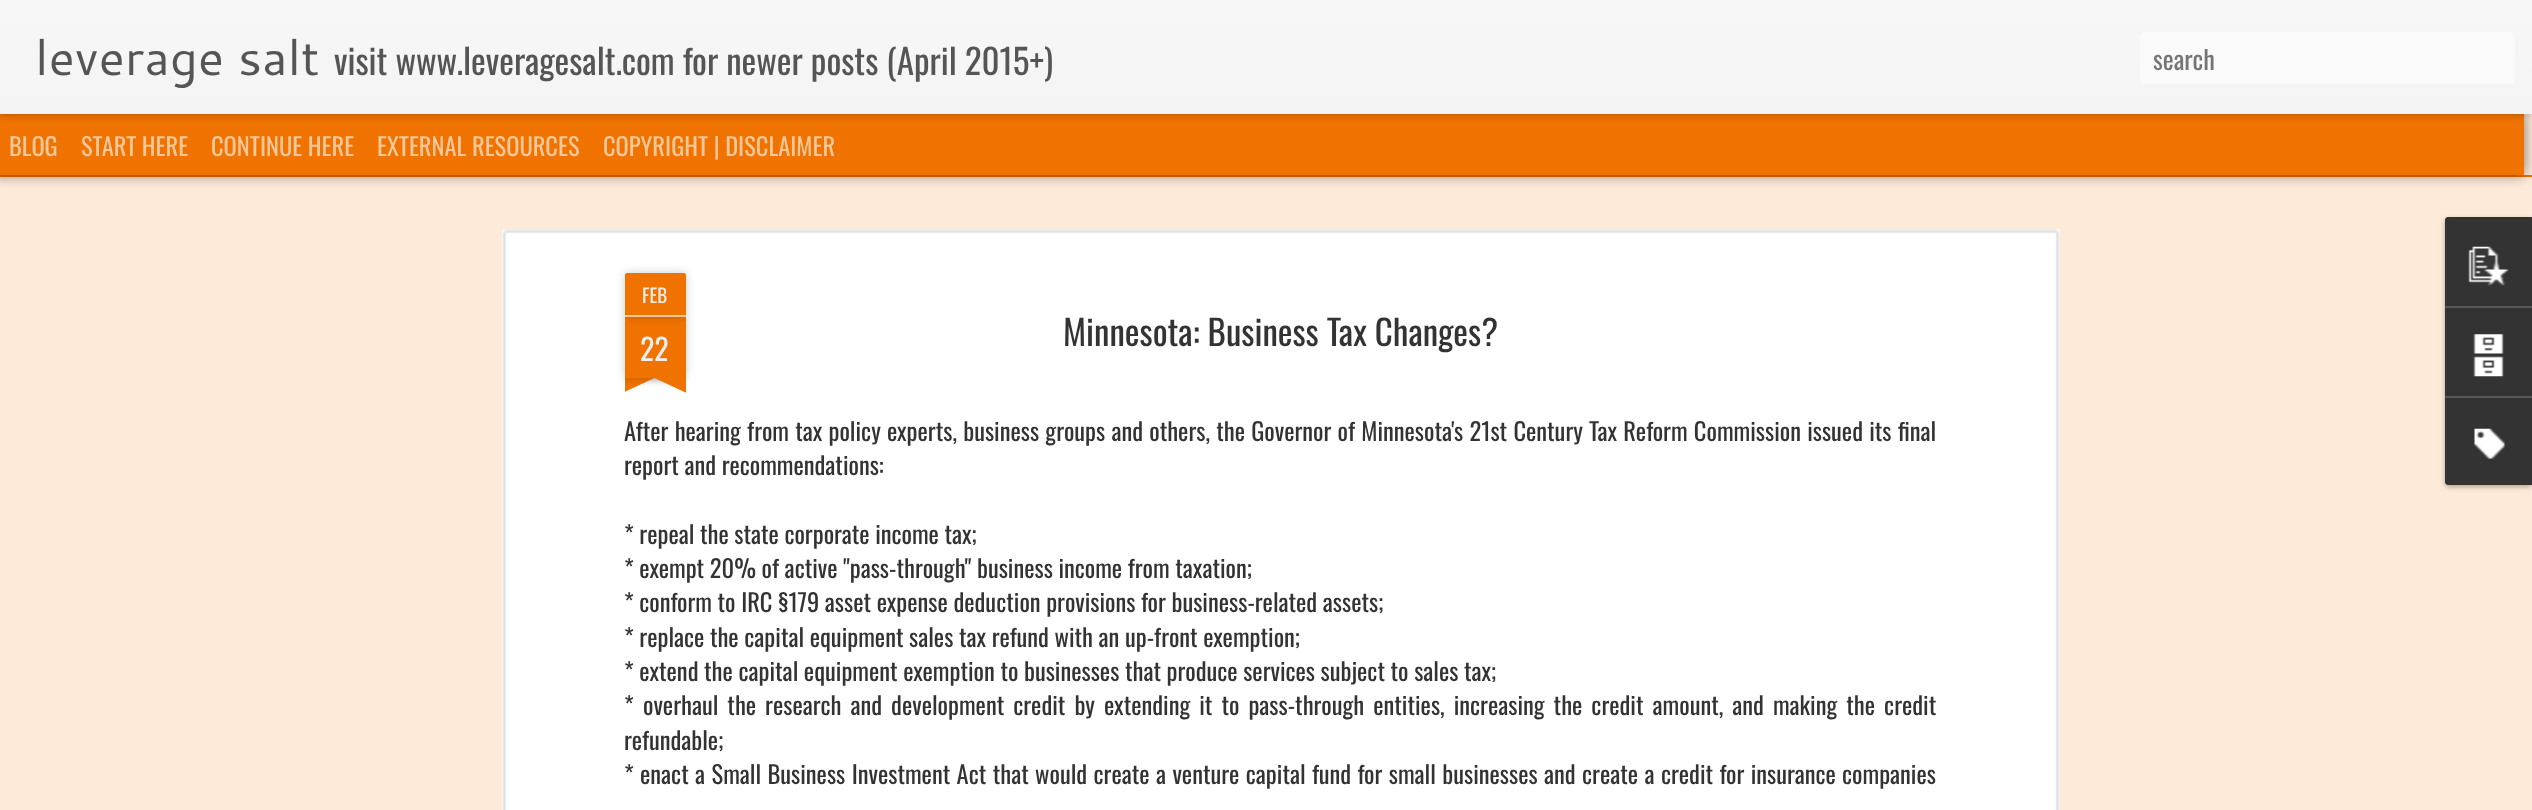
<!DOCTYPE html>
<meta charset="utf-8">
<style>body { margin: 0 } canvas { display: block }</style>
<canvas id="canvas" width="2532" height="810"></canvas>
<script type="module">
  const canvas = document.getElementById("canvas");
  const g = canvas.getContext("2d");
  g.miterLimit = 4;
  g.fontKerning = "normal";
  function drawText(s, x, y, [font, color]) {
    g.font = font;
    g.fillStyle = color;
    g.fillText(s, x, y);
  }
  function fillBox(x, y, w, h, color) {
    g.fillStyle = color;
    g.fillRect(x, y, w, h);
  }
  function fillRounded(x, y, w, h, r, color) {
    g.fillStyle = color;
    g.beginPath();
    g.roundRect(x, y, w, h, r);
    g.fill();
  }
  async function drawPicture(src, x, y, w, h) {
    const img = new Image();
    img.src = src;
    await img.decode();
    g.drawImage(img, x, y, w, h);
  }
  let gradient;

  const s1 = ["49px Cantarell", "#555555"];
  const s2 = ["35px Oswald", "#555555"];
  const s3 = ["26px Oswald", "#757575"];
  const s4 = ["24.5px Oswald", "#F9C799"];
  const s5 = ["19px Oswald", "#EEEEEE"];
  const s6 = ["30px Oswald", "#EEEEEE"];
  const s7 = ["35px Oswald", "#333333"];
  const s8 = ["24.5px Oswald", "#333333"];

  fillBox(0, 0, 2532, 810, "#FDEAD9");
  fillBox(0, 175, 2532, 2, "#F07300");
  g.fillStyle = "rgba(0, 0, 0, 0.5)";
  g.filter = "blur(7px)";
  g.beginPath();
  g.rect(-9, 114, 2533, 61);
  g.fill();
  g.filter = "none";
  fillBox(0, 114, 2524, 61, "#F07300");
  g.fillStyle = "rgba(0, 0, 0, 0.3)";
  g.filter = "blur(4.5px)";
  g.beginPath();
  g.rect(0, 0, 2532, 114);
  g.fill();
  g.filter = "none";
  gradient = g.createLinearGradient(0, 0, 0, 114);
  gradient.addColorStop(0, "#F7F7F7");
  gradient.addColorStop(1, "#F4F4F4");
  g.fillStyle = gradient;
  g.fillRect(0, 0, 2532, 114);
  drawText("leverage salt", 35, 75, s1);
  drawText("visit www.leveragesalt.com for newer posts (April 2015+)", 334, 75, s2);
  fillRounded(2140, 32, 375, 52, 5, "#FAFAFA");
  drawText("search", 2153, 70, s3);
  drawText("BLOG", 9, 156, s4);
  drawText("START HERE", 81, 156, s4);
  drawText("CONTINUE HERE", 211, 156, s4);
  drawText("EXTERNAL RESOURCES", 377, 156, s4);
  drawText("COPYRIGHT | DISCLAIMER", 603, 156, s4);
  fillBox(502, 229, 1558, 581, "#FFFFFF");
  await drawPicture("pic1.png", 502, 229, 1558, 581);
  g.fillStyle = "rgba(0, 0, 0, 0.2)";
  g.filter = "blur(4.5px)";
  g.beginPath();
  g.rect(625, 317, 61, 61);
  g.fill();
  g.filter = "none";
  fillBox(625, 317, 61, 61, "#F07300");
  g.fillStyle = "rgba(0, 0, 0, 0.2)";
  g.filter = "blur(4.5px)";
  g.beginPath();
  g.roundRect(625, 273, 61, 44, 2);
  g.fill();
  g.filter = "none";
  g.fillStyle = "#F07300";
  g.beginPath();
  g.roundRect(625, 273, 61, 44, [2, 2, 0, 0]);
  g.fill();
  fillBox(625, 315, 61, 2, "#F9C799");
  drawText("FEB", 642, 303, s5);
  drawText("22", 640, 361, s6);
  g.save();
  g.beginPath();
  g.rect(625, 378, 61, 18);
  g.clip();
  g.fillStyle = "rgba(0, 0, 0, 0.2)";
  g.filter = "blur(4.5px)";
  g.beginPath();
  g.rect(609, 361, 88, 17);
  g.fill();
  g.filter = "none";
  g.restore();
  g.save();
  g.beginPath();
  g.rect(625, 378, 61, 18);
  g.clip();
  g.fillStyle = "#F07300";
  g.beginPath();
  g.moveTo(609, 380);
  g.lineTo(688, 343);
  g.lineTo(695, 359);
  g.lineTo(616, 396);
  g.closePath();
  g.fill();
  g.restore();
  g.save();
  g.beginPath();
  g.rect(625, 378, 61, 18);
  g.clip();
  g.fillStyle = "rgba(0, 0, 0, 0.2)";
  g.filter = "blur(4.5px)";
  g.beginPath();
  g.rect(614, 361, 88, 17);
  g.fill();
  g.filter = "none";
  g.restore();
  g.save();
  g.beginPath();
  g.rect(625, 378, 61, 18);
  g.clip();
  g.fillStyle = "#F07300";
  g.beginPath();
  g.moveTo(621, 343);
  g.lineTo(700, 380);
  g.lineTo(693, 396);
  g.lineTo(614, 359);
  g.closePath();
  g.fill();
  g.restore();
  drawText("Minnesota: Business Tax Changes?", 1063, 346, s7);
  g.wordSpacing = "0.6px";
  drawText("After hearing from tax policy experts, business groups and others, the Governor of Minnesota's 21st Century Tax Reform Commission issued its final", 624, 441, s8);
  g.wordSpacing = "0px";
  drawText("report and recommendations:", 624, 475, s8);
  drawText("* repeal the state corporate income tax;", 624, 544, s8);
  drawText("* exempt 20% of active \"pass-through\" business income from taxation;", 624, 578, s8);
  drawText("* conform to IRC §179 asset expense deduction provisions for business-related assets;", 624, 612, s8);
  drawText("* replace the capital equipment sales tax refund with an up-front exemption;", 624, 647, s8);
  drawText("* extend the capital equipment exemption to businesses that produce services subject to sales tax;", 624, 681, s8);
  drawText("*", 624, 715, s8);
  g.wordSpacing = "3.4px";
  drawText("overhaul the research and development credit by extending it to pass-through entities, increasing the credit amount, and making the credit", 643, 715, s8);
  g.wordSpacing = "0px";
  drawText("refundable;", 624, 750, s8);
  drawText("*", 624, 784, s8);
  g.wordSpacing = "0.8px";
  drawText("enact a Small Business Investment Act that would create a venture capital fund for small businesses and create a credit for insurance companies", 640, 784, s8);
  g.fillStyle = "rgba(0, 0, 0, 0.3)";
  g.filter = "blur(2.5px)";
  g.beginPath();
  g.roundRect(2445, 219, 87, 268, 4);
  g.fill();
  g.filter = "none";
  g.fillStyle = "#333333";
  g.beginPath();
  g.roundRect(2445, 217, 87, 268, [4, 0, 0, 4]);
  g.fill();
  g.beginPath();
  g.roundRect(2445, 217, 87, 89, [4, 0, 0, 0]);
  g.fill();
  await drawPicture("pic2.png", 2468, 246, 41, 40);
  fillBox(2445, 306, 87, 2, "#585858");
  await drawPicture("pic3.png", 2473, 334, 31, 43);
  g.fillStyle = "#333333";
  g.beginPath();
  g.roundRect(2445, 396, 87, 89, [0, 0, 0, 4]);
  g.fill();
  fillBox(2445, 396, 87, 2, "#585858");
  await drawPicture("pic4.png", 2474, 428, 31, 31);
</script>
